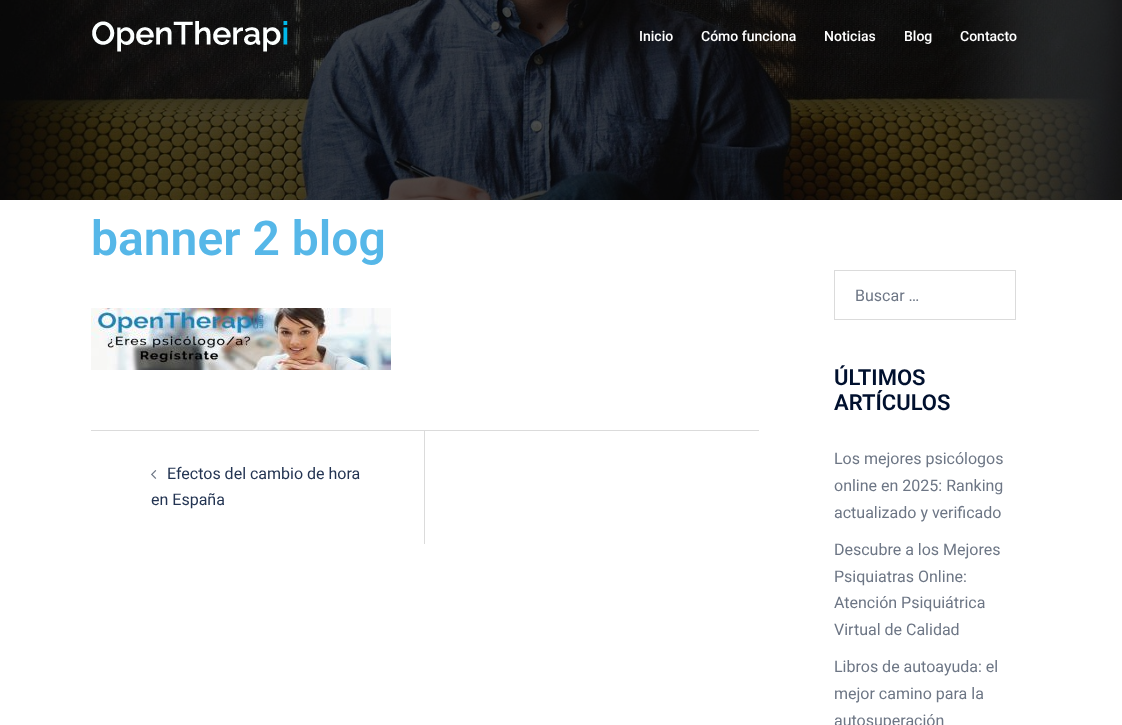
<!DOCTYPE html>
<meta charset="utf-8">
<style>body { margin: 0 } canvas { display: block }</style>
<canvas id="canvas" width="1122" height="725"></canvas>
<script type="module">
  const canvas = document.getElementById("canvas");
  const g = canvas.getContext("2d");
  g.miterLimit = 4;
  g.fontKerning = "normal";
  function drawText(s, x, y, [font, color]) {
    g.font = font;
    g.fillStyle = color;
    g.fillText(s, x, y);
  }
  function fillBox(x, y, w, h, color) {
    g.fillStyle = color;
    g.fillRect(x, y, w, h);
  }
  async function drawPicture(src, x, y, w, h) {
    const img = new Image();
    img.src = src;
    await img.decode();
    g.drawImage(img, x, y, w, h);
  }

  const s1 = ["500 14px Roboto", "#FFFFFF"];
  const s2 = ["600 48px Roboto", "#56B7E8"];
  const s3 = ["16px Roboto", "#233452"];
  const s4 = ["16px Roboto", "#6D7685"];
  const s5 = ["600 22px Roboto", "#00102E"];

  fillBox(0, 0, 1122, 725, "#FFFFFF");
  await drawPicture("pic1.png", 0, 0, 1122, 200);
  await drawPicture("pic2.png", 92, 21, 196, 31);
  drawText("Inicio", 639, 41, s1);
  drawText("Cómo funciona", 701, 41, s1);
  drawText("Noticias", 824, 41, s1);
  drawText("Blog", 904, 41, s1);
  drawText("Contacto", 960, 41, s1);
  drawText("banner 2 blog", 91, 255, s2);
  await drawPicture("pic3.png", 91, 308, 300, 62);
  fillBox(91, 430, 668, 1, "#DBDBDB");
  fillBox(424, 431, 1, 113, "#DBDBDB");
  await drawPicture("pic4.png", 151, 470, 6, 9);
  drawText("Efectos del cambio de hora", 167, 479, s3);
  drawText("en España", 151, 505, s3);
  g.strokeStyle = "#DBDBDB";
  g.strokeRect(834.5, 270.5, 181, 49);
  drawText("Buscar …", 855, 301, s4);
  drawText("ÚLTIMOS", 834, 385, s5);
  drawText("ARTÍCULOS", 834, 410, s5);
  drawText("Los mejores psicólogos", 834, 464, s4);
  drawText("online en 2025: Ranking", 834, 491, s4);
  drawText("actualizado y verificado", 834, 518, s4);
  drawText("Descubre a los Mejores", 834, 555, s4);
  drawText("Psiquiatras Online:", 834, 582, s4);
  drawText("Atención Psiquiátrica", 834, 608, s4);
  drawText("Virtual de Calidad", 834, 635, s4);
  drawText("Libros de autoayuda: el", 834, 672, s4);
  drawText("mejor camino para la", 834, 699, s4);
  drawText("autosuperación", 834, 726, s4);
</script>
